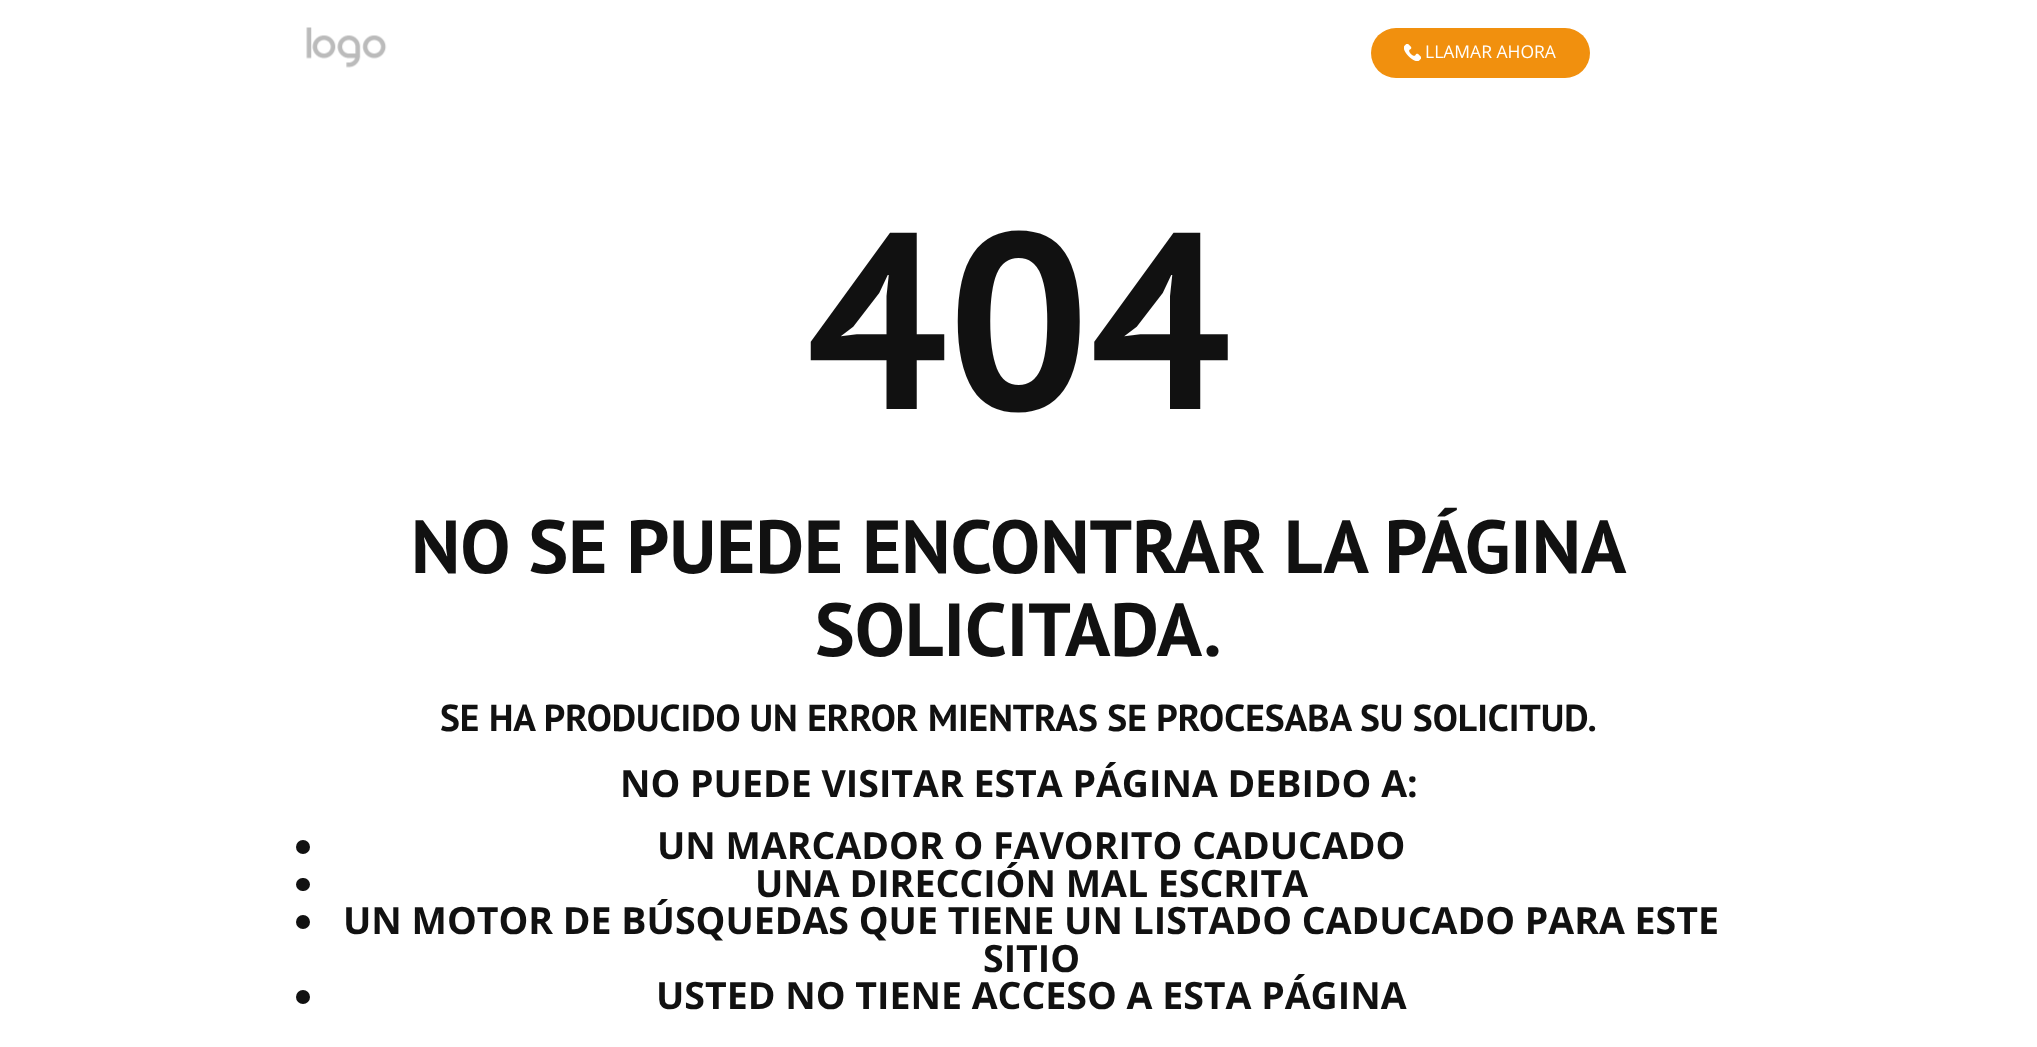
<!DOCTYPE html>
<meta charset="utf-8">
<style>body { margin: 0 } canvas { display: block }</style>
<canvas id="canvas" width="2037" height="1047"></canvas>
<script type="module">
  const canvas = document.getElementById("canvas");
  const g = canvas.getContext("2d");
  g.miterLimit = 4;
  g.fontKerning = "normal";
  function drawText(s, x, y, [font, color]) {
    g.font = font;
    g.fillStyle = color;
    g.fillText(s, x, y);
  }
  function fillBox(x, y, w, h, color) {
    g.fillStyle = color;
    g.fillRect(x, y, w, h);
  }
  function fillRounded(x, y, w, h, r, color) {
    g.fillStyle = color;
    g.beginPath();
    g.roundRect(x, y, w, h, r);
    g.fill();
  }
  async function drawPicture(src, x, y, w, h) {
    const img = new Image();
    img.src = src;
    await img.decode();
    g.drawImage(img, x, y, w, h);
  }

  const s1 = ["17.5px Open Sans", "#FFFFFF"];
  const s2 = ["bold 250px PT Sans", "#111111"];
  const s3 = ["bold 75px PT Sans", "#111111"];
  const s4 = ["bold 37.5px PT Sans", "#111111"];
  const s5 = ["bold 37.5px Open Sans", "#111111"];

  fillBox(0, 0, 2037, 1047, "#FFFFFF");
  await drawPicture("pic1.png", 306, 27, 81, 41);
  fillRounded(1371, 28, 219, 50, 25, "#F1900E");
  await drawPicture("pic2.png", 1404, 44, 17, 17);
  drawText("LLAMAR AHORA", 1425, 58, s1);
  drawText("404", 806, 409, s2);
  drawText("NO SE PUEDE ENCONTRAR LA PÁGINA", 411, 573, s3);
  drawText("SOLICITADA.", 815, 656, s3);
  drawText("SE HA PRODUCIDO UN ERROR MIENTRAS SE PROCESABA SU SOLICITUD.", 440, 731, s4);
  drawText("NO PUEDE VISITAR ESTA PÁGINA DEBIDO A:", 620, 797, s5);
  g.beginPath();
  g.arc(303, 847, 7, 0, Math.PI * 2);
  g.fill();
  drawText("UN MARCADOR O FAVORITO CADUCADO", 657, 859, s5);
  fillRounded(296, 878, 14, 13, 6.5, "#111111");
  drawText("UNA DIRECCIÓN MAL ESCRITA", 755, 897, s5);
  g.beginPath();
  g.arc(303, 922, 7, 0, Math.PI * 2);
  g.fill();
  drawText("UN MOTOR DE BÚSQUEDAS QUE TIENE UN LISTADO CADUCADO PARA ESTE", 343, 934, s5);
  drawText("SITIO", 983, 972, s5);
  g.beginPath();
  g.arc(303, 997, 7, 0, Math.PI * 2);
  g.fill();
  drawText("USTED NO TIENE ACCESO A ESTA PÁGINA", 656, 1009, s5);
</script>
